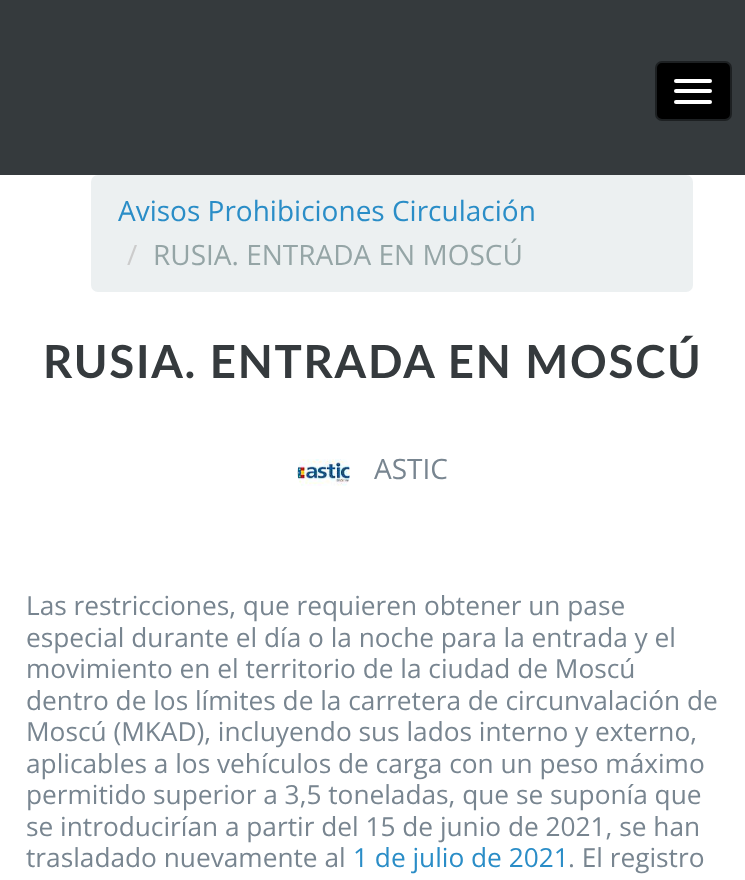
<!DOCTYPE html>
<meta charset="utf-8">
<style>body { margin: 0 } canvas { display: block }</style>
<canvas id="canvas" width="745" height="880"></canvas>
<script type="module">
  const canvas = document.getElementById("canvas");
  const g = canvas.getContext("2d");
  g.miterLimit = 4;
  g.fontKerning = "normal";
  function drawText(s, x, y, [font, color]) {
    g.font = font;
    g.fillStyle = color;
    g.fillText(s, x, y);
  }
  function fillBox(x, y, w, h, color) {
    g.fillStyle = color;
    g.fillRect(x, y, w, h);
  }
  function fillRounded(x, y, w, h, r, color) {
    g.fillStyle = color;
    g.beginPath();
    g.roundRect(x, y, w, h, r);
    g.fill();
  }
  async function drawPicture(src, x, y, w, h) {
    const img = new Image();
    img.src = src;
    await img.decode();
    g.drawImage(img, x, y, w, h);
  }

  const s1 = ["28px Open Sans", "#2A8DC7"];
  const s2 = ["28px Open Sans", "#CCCCCC"];
  const s3 = ["28px Open Sans", "#95A5A6"];
  const s4 = ["bold 45.5px Lato", "#353A3D"];
  const s5 = ["28px Open Sans", "#788590"];
  const s6 = ["26.25px Open Sans", "#788590"];
  const s7 = ["26.25px Open Sans", "#2A8DC7"];

  fillBox(0, 0, 745, 880, "#FFFFFF");
  fillBox(0, 0, 745, 175, "#353A3D");
  g.fillStyle = "#000000";
  g.beginPath();
  g.roundRect(656, 62, 75, 58, 6);
  g.fill();
  g.strokeStyle = "#1D2022";
  g.lineWidth = 2;
  g.stroke();
  fillRounded(674, 79, 38, 4, 2, "#FFFFFF");
  fillRounded(674, 89, 38, 4, 2, "#FFFFFF");
  fillRounded(674, 100, 38, 4, 2, "#FFFFFF");
  fillRounded(91, 175, 602, 117, 7, "#ECF0F1");
  drawText("Avisos Prohibiciones Circulación", 118, 221, s1);
  drawText("/", 127, 265, s2);
  drawText("RUSIA. ENTRADA EN MOSCÚ", 153, 265, s3);
  g.letterSpacing = "1.75px";
  drawText("RUSIA. ENTRADA EN MOSCÚ", 43, 378, s4);
  await drawPicture("pic1.png", 297, 459, 53, 27);
  g.letterSpacing = "0px";
  drawText("ASTIC", 374, 479, s5);
  drawText("Las restricciones, que requieren obtener un pase", 26, 615, s6);
  drawText("especial durante el día o la noche para la entrada y el", 26, 647, s6);
  drawText("movimiento en el territorio de la ciudad de Moscú", 26, 678, s6);
  drawText("dentro de los límites de la carretera de circunvalación de", 26, 710, s6);
  drawText("Moscú (MKAD), incluyendo sus lados interno y externo,", 26, 741, s6);
  drawText("aplicables a los vehículos de carga con un peso máximo", 26, 773, s6);
  drawText("permitido superior a 3,5 toneladas, que se suponía que", 26, 804, s6);
  drawText("se introducirían a partir del 15 de junio de 2021, se han", 26, 836, s6);
  drawText("trasladado nuevamente al", 26, 867, s6);
  drawText("1 de julio de 2021", 353, 867, s7);
  drawText(". El registro", 568, 867, s6);
</script>
